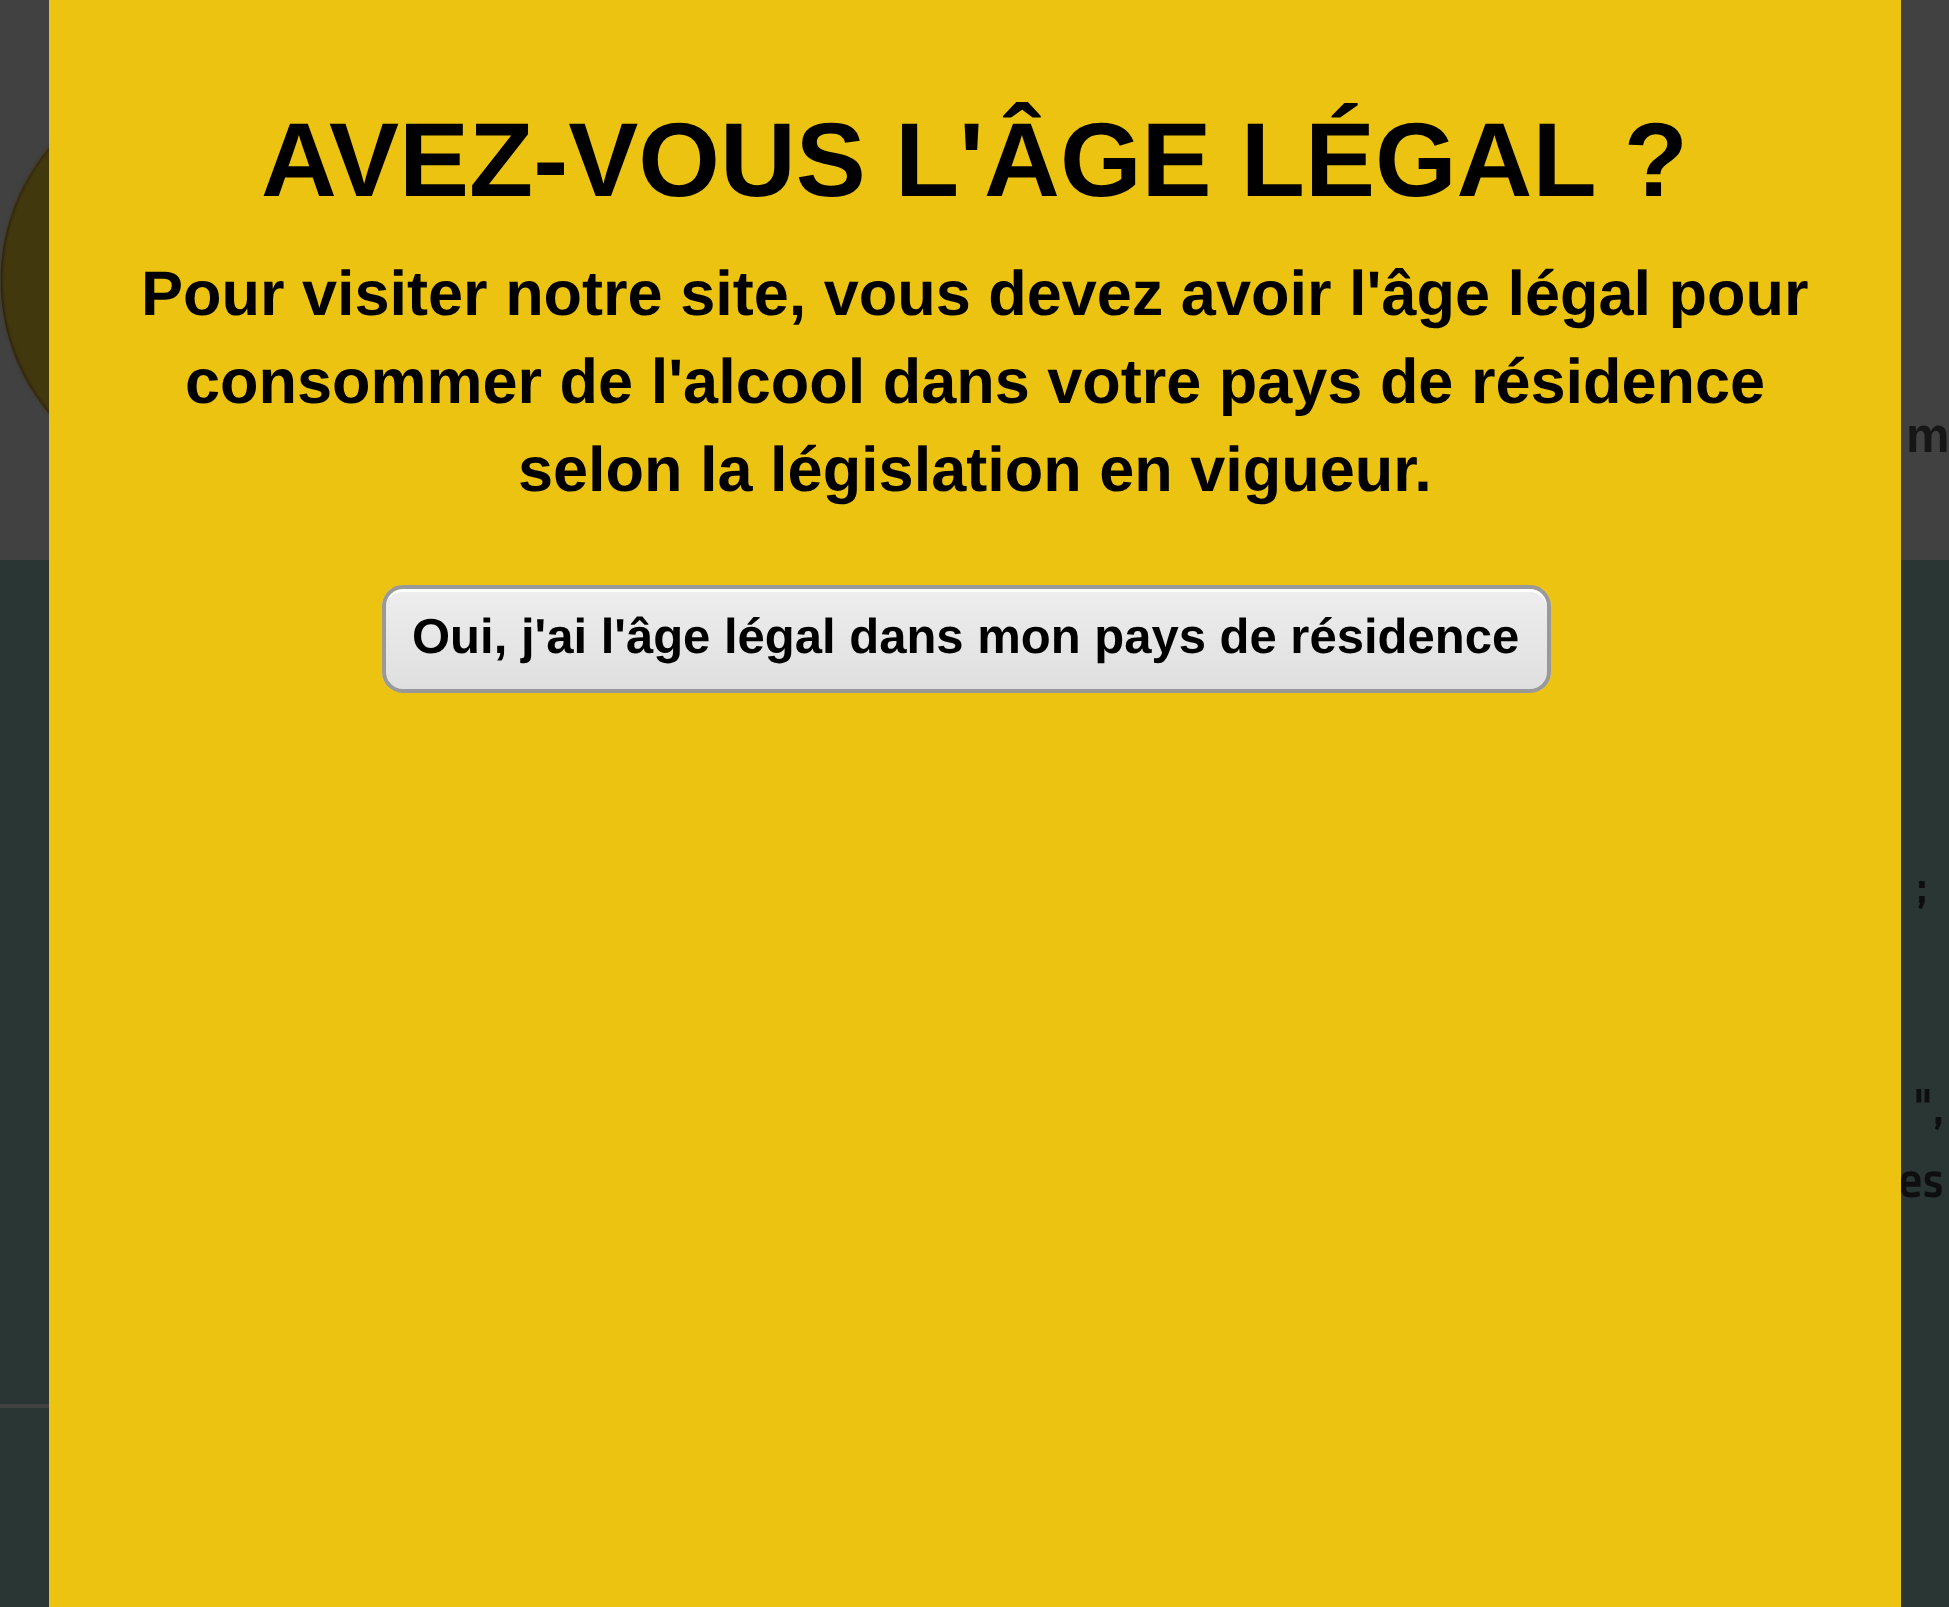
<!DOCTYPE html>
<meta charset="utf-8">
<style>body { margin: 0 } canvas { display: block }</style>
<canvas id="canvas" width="1949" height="1607"></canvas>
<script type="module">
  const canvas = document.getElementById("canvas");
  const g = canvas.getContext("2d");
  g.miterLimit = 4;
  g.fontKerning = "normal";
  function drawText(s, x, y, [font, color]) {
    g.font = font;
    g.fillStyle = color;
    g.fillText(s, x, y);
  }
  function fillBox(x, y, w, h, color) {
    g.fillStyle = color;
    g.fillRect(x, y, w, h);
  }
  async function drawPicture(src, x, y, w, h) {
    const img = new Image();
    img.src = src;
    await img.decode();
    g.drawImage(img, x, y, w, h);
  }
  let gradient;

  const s1 = ["bold 49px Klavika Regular", "#0E0E0E"];
  const s2 = ["bold 105px Liberation Sans", "#000000"];
  const s3 = ["bold 63px Liberation Sans", "#000000"];
  const s4 = ["bold 49px Liberation Sans", "#000000"];
  const s5 = ["bold 49px Liberation Sans", "#161616"];

  fillBox(0, 0, 1949, 1607, "#293634");
  fillBox(0, 0, 1949, 560, "#414141");
  drawText("es", 1898, 1197, s1);
  fillBox(49, 0, 1852, 1607, "#ECC311");
  drawText("AVEZ-VOUS L'ÂGE LÉGAL ?", 261, 196, s2);
  drawText("Pour visiter notre site, vous devez avoir l'âge légal pour", 141, 315, s3);
  drawText("consommer de l'alcool dans votre pays de résidence", 185, 403, s3);
  drawText("selon la législation en vigueur.", 518, 491, s3);
  g.save();
  g.beginPath();
  g.roundRect(382, 585, 1169, 108, 21);
  g.clip();
  gradient = g.createLinearGradient(966, 588, 966, 690);
  gradient.addColorStop(0.05, "#EDEDED");
  gradient.addColorStop(1, "#DFDFDF");
  g.fillStyle = gradient;
  g.fillRect(382, 588, 1169, 102);
  g.restore();
  g.fillStyle = "#FFFFFF";
  g.beginPath();
  g.moveTo(402, 592);
  g.lineTo(1530, 592);
  g.bezierCurveTo(1539, 592, 1547, 599, 1547, 609);
  g.bezierCurveTo(1547, 598, 1542, 588, 1529, 588);
  g.lineTo(403, 588);
  g.bezierCurveTo(390, 588, 385, 598, 385, 609);
  g.bezierCurveTo(385, 599, 393, 592, 402, 592);
  g.closePath();
  g.fill();
  g.beginPath();
  g.roundRect(384, 587, 1165, 104, 19);
  g.strokeStyle = "#999999";
  g.lineWidth = 4;
  g.stroke();
  drawText("Oui, j'ai l'âge légal dans mon pays de résidence", 412, 653, s4);
  await drawPicture("pic1.png", 0, 142, 49, 277);
  drawText("m", 1906, 452, s5);
  drawText(";", 1915, 903, s1);
  drawText("\",", 1913, 1124, s1);
  fillBox(0, 1404, 49, 4, "#414141");
</script>
